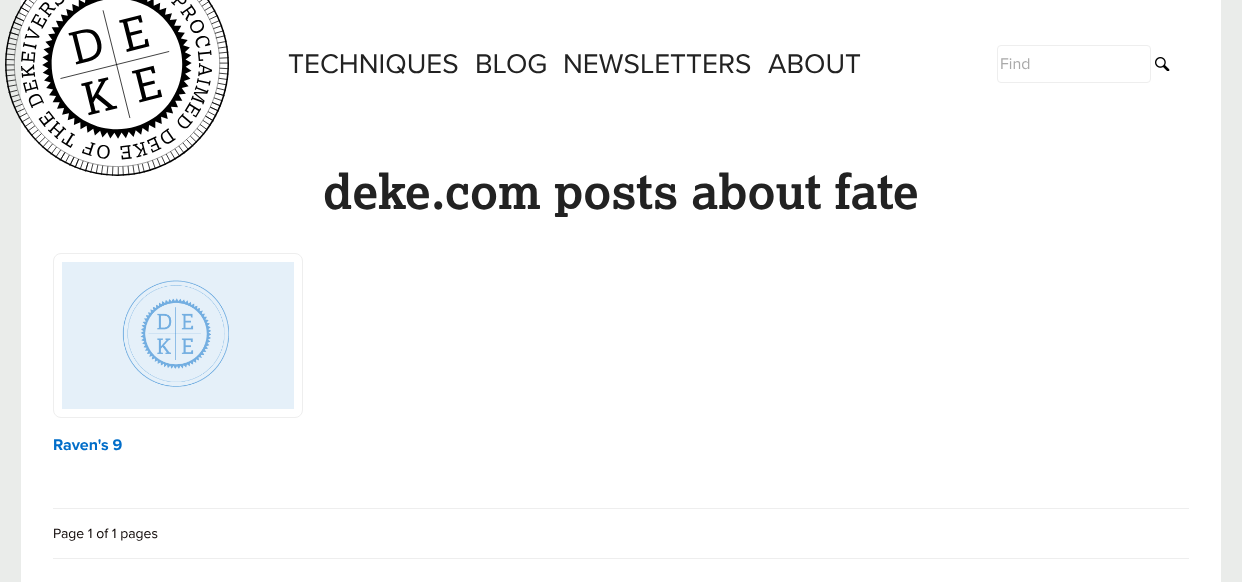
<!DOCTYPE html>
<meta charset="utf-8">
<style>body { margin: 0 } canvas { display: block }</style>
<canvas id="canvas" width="1242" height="582"></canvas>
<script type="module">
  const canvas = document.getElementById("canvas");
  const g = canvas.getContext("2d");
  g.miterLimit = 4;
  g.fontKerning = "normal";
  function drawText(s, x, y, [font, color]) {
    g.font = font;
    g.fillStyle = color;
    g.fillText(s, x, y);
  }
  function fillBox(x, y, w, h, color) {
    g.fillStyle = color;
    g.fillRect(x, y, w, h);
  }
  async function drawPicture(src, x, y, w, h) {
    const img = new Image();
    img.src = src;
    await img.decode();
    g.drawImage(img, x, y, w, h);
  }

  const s1 = ["28px Proxima Nova", "#222222"];
  const s2 = ["16px Proxima Nova", "#A9A9A9"];
  const s3 = ["bold 48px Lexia", "#222222"];
  const s4 = ["bold 16px Proxima Nova", "#016DC9"];
  const s5 = ["14px Proxima Nova", "#0C0504"];

  fillBox(0, 0, 1242, 582, "#EAECEA");
  fillBox(21, 0, 1200, 582, "#FFFFFF");
  drawText("TECHNIQUES", 288, 73, s1);
  drawText("BLOG", 475, 73, s1);
  drawText("NEWSLETTERS", 563, 73, s1);
  drawText("ABOUT", 768, 73, s1);
  g.beginPath();
  g.roundRect(997.5, 45.5, 153, 37, 3.5);
  g.strokeStyle = "#EEEEEE";
  g.stroke();
  drawText("Find", 1000, 69, s2);
  await drawPicture("pic1.png", 1155, 57, 15, 14);
  await drawPicture("pic2.png", 5, 0, 224, 176);
  drawText("deke.com posts about fate", 323, 209, s3);
  g.beginPath();
  g.roundRect(53.5, 253.5, 249, 164, 7.5);
  g.stroke();
  await drawPicture("pic3.png", 62, 262, 232, 147);
  drawText("Raven's 9", 53, 450, s4);
  fillBox(53, 508, 1136, 1, "#EEEEEE");
  fillBox(53, 558, 1136, 1, "#EEEEEE");
  drawText("Page 1 of 1 pages", 53, 538, s5);
</script>
